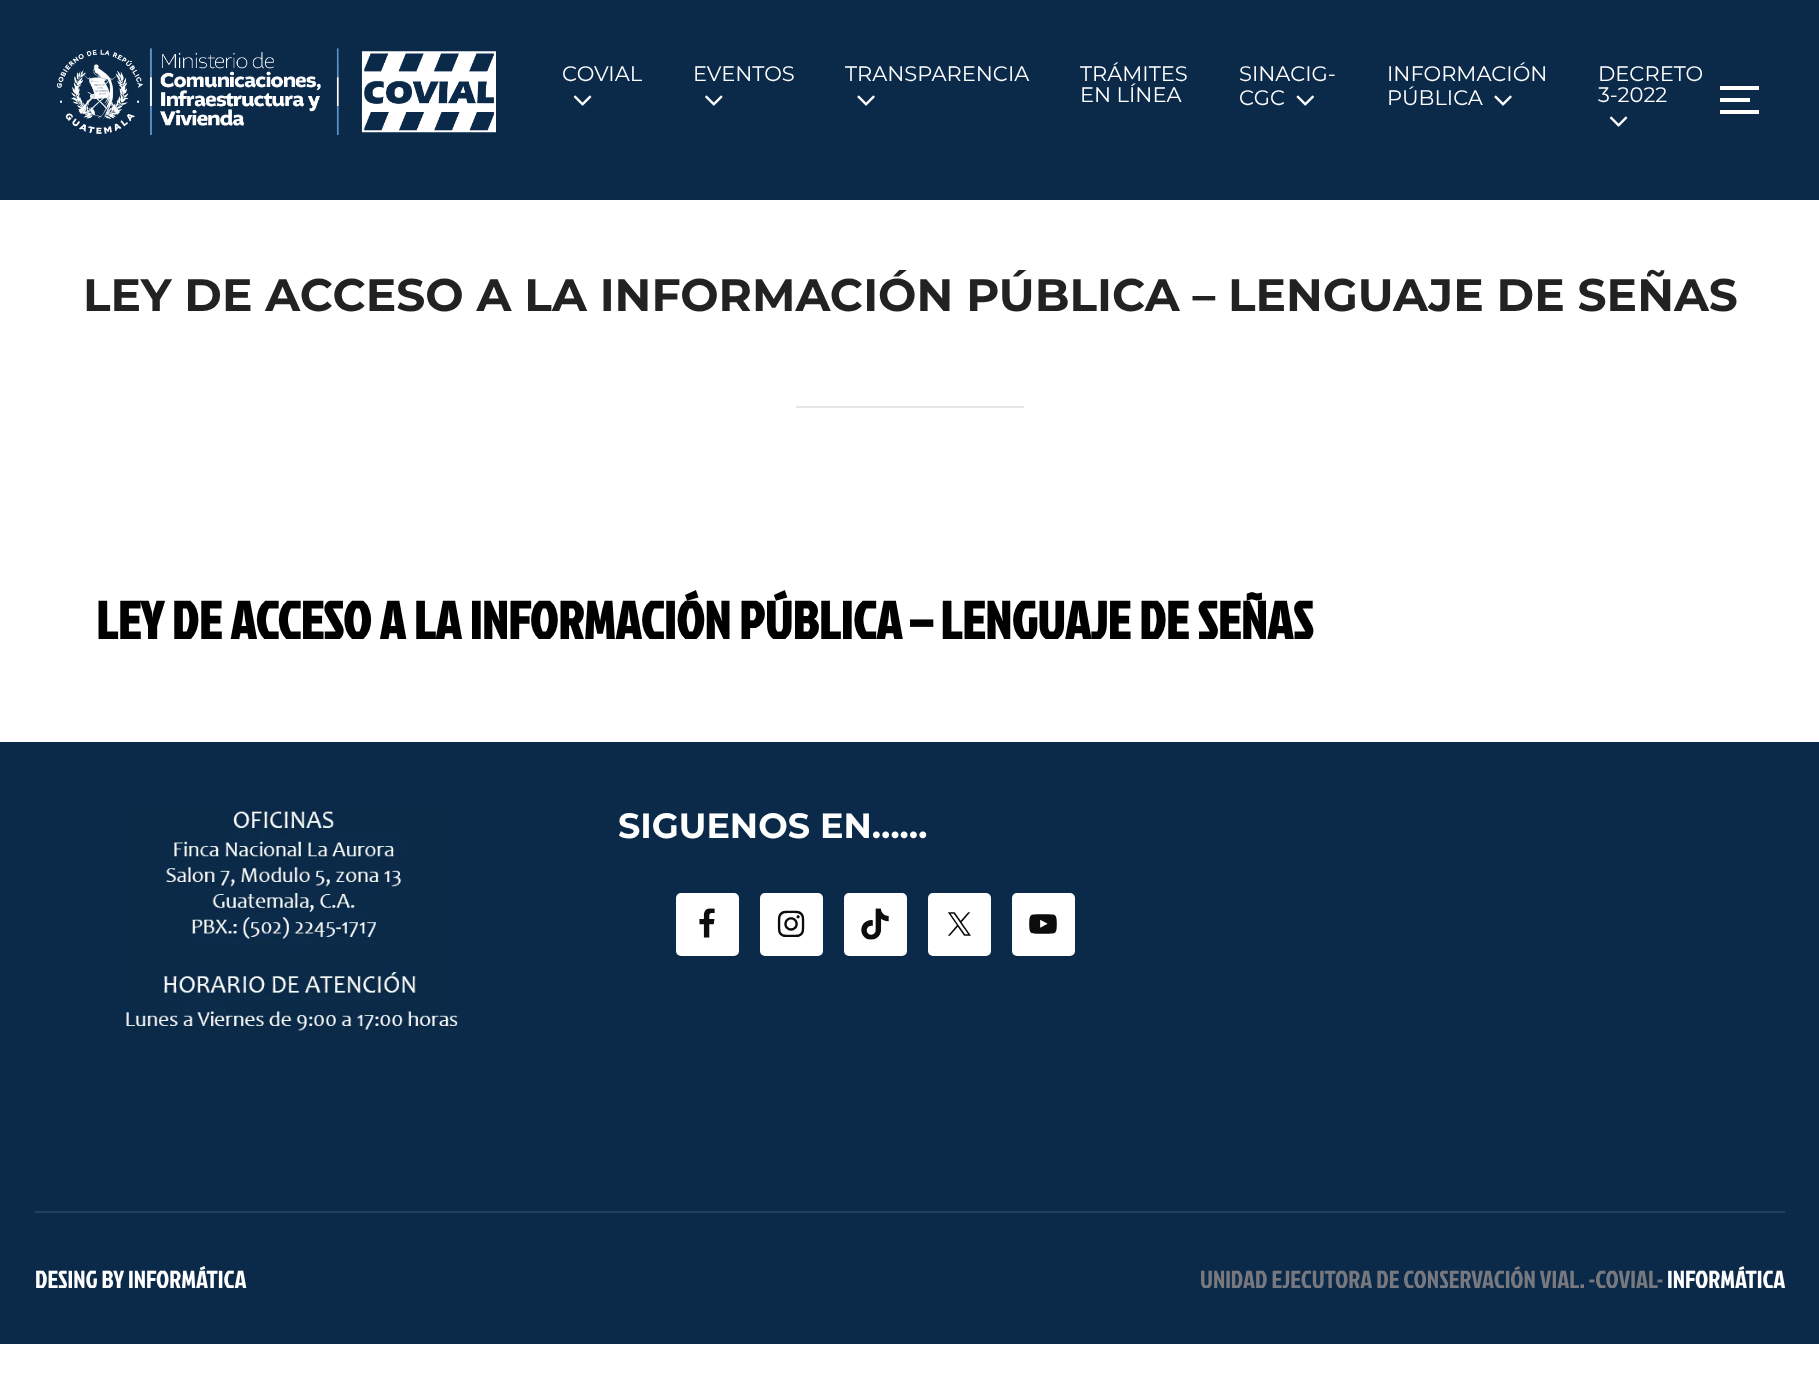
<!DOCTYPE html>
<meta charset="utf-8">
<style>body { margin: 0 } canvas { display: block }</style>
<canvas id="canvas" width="1819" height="1396"></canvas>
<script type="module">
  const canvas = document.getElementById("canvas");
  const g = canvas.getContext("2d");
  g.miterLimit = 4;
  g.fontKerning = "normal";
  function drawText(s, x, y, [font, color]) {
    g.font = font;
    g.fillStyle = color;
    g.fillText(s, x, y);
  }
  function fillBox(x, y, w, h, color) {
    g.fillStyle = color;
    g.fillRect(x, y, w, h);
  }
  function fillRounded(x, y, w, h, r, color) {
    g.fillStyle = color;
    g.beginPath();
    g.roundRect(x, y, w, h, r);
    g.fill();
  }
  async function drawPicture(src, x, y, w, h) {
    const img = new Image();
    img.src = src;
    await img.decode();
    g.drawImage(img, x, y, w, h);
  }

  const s1 = ["21px Montserrat", "#FFFFFF"];
  const s2 = ["bold 45.5px Montserrat", "#222222"];
  const s3 = ["bold 52.5px Jockey One", "#000000"];
  const s4 = ["bold 35px Montserrat", "#FFFFFF"];
  const s5 = ["24.5px Jockey One", "#FFFFFF"];
  const s6 = ["24.5px Jockey One", "#78787F"];

  fillBox(0, 0, 1819, 1396, "#FFFFFF");
  fillBox(0, 0, 1819, 200, "#0B2A4A");
  await drawPicture("pic1.png", 57, 48, 439, 87);
  drawText("COVIAL", 562, 81, s1);
  await drawPicture("pic2.png", 573, 95, 19, 11);
  drawText("EVENTOS", 693, 81, s1);
  await drawPicture("pic3.png", 705, 95, 18, 11);
  drawText("TRANSPARENCIA", 845, 81, s1);
  await drawPicture("pic4.png", 857, 95, 18, 11);
  drawText("TRÁMITES", 1080, 81, s1);
  drawText("EN LÍNEA", 1080, 102, s1);
  drawText("SINACIG-", 1239, 81, s1);
  drawText("CGC", 1239, 105, s1);
  await drawPicture("pic5.png", 1296, 95, 18, 11);
  drawText("INFORMACIÓN", 1387, 81, s1);
  drawText("PÚBLICA", 1387, 105, s1);
  await drawPicture("pic4.png", 1494, 95, 18, 11);
  drawText("DECRETO", 1598, 81, s1);
  drawText("3-2022", 1598, 102, s1);
  await drawPicture("pic2.png", 1609, 116, 19, 11);
  fillBox(1720, 86, 39, 4, "#FFFFFF");
  fillBox(1720, 98, 30, 4, "#FFFFFF");
  fillBox(1720, 110, 39, 4, "#FFFFFF");
  drawText("LEY DE ACCESO A LA INFORMACIÓN PÚBLICA – LENGUAJE DE SEÑAS", 83, 311, s2);
  fillBox(796, 406, 228, 2, "#E6E6E6");
  drawText("LEY DE ACCESO A LA INFORMACIÓN PÚBLICA – LENGUAJE DE SEÑAS", 96, 639, s3);
  fillBox(0, 742, 1819, 602, "#0B2A4A");
  await drawPicture("pic6.png", 124, 808, 335, 225);
  drawText("SIGUENOS EN……", 618, 838, s4);
  fillRounded(676, 893, 63, 63, 5, "#FFFFFF");
  await drawPicture("pic7.png", 699, 908, 16, 30);
  fillRounded(760, 893, 63, 63, 5, "#FFFFFF");
  await drawPicture("pic8.png", 777, 910, 28, 27);
  fillRounded(844, 893, 63, 63, 5, "#FFFFFF");
  await drawPicture("pic9.png", 861, 908, 28, 32);
  fillRounded(928, 893, 63, 63, 5, "#FFFFFF");
  await drawPicture("pic10.png", 948, 912, 23, 24);
  fillRounded(1012, 893, 63, 63, 5, "#FFFFFF");
  await drawPicture("pic11.png", 1029, 914, 28, 20);
  fillBox(35, 1211, 1750, 2, "#233F5C");
  drawText("DESING BY INFORMÁTICA", 35, 1288, s5);
  drawText("UNIDAD EJECUTORA DE CONSERVACIÓN VIAL. -COVIAL-", 1200, 1288, s6);
  drawText("INFORMÁTICA", 1667, 1288, s5);
</script>
